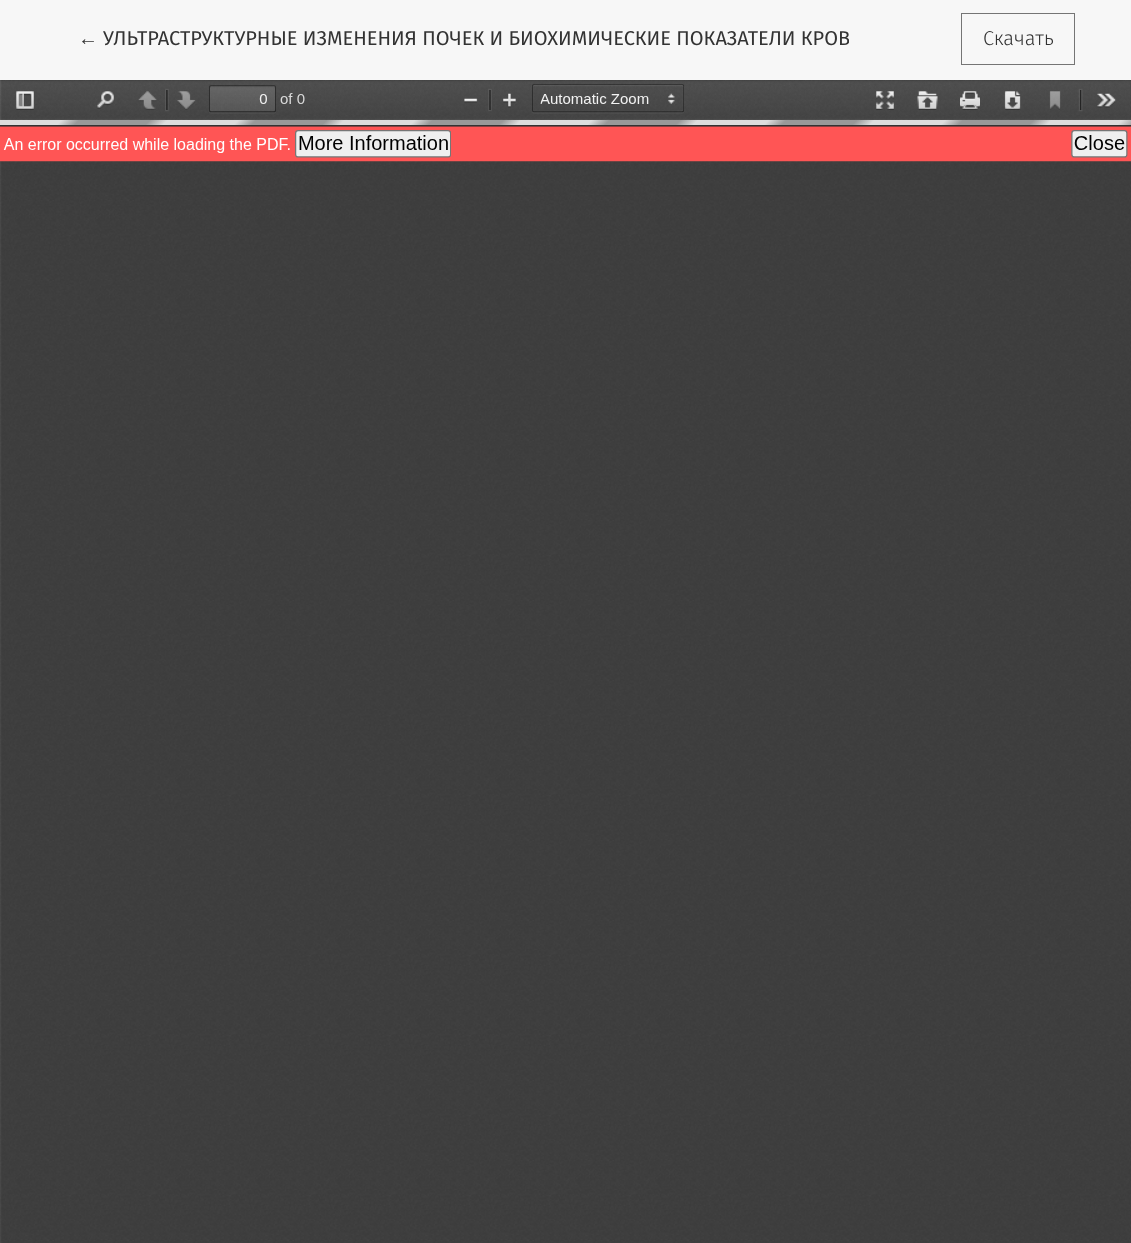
<!DOCTYPE html>
<meta charset="utf-8">
<style>body { margin: 0 } canvas { display: block }</style>
<canvas id="canvas" width="1131" height="1243"></canvas>
<script type="module">
  const canvas = document.getElementById("canvas");
  const g = canvas.getContext("2d");
  g.miterLimit = 4;
  g.fontKerning = "normal";
  function drawText(s, x, y, [font, color]) {
    g.font = font;
    g.fillStyle = color;
    g.fillText(s, x, y);
  }
  function fillBox(x, y, w, h, color) {
    g.fillStyle = color;
    g.fillRect(x, y, w, h);
  }
  async function drawPicture(src, x, y, w, h) {
    const img = new Image();
    img.src = src;
    await img.decode();
    g.drawImage(img, x, y, w, h);
  }

  const s1 = ["20px Liberation Sans", "#333333"];
  const s2 = ["20px Fira Sans", "#333333"];
  const s3 = ["300 20px Fira Sans", "#333333"];

  fillBox(0, 0, 1131, 1243, "#F7F7F7");
  drawText("←", 78, 45, s1);
  g.save();
  g.beginPath();
  g.rect(56, 13, 793, 52);
  g.clip();
  drawText("УЛЬТРАСТРУКТУРНЫЕ ИЗМЕНЕНИЯ ПОЧЕК И БИОХИМИЧЕСКИЕ ПОКАЗАТЕЛИ КРОВ", 103, 45, s2);
  g.restore();
  g.strokeStyle = "#757575";
  g.strokeRect(961.5, 13.5, 113, 51);
  drawText("Скачать", 983, 45, s3);
  await drawPicture("pic1.png", 0, 80, 1131, 1163);
</script>
